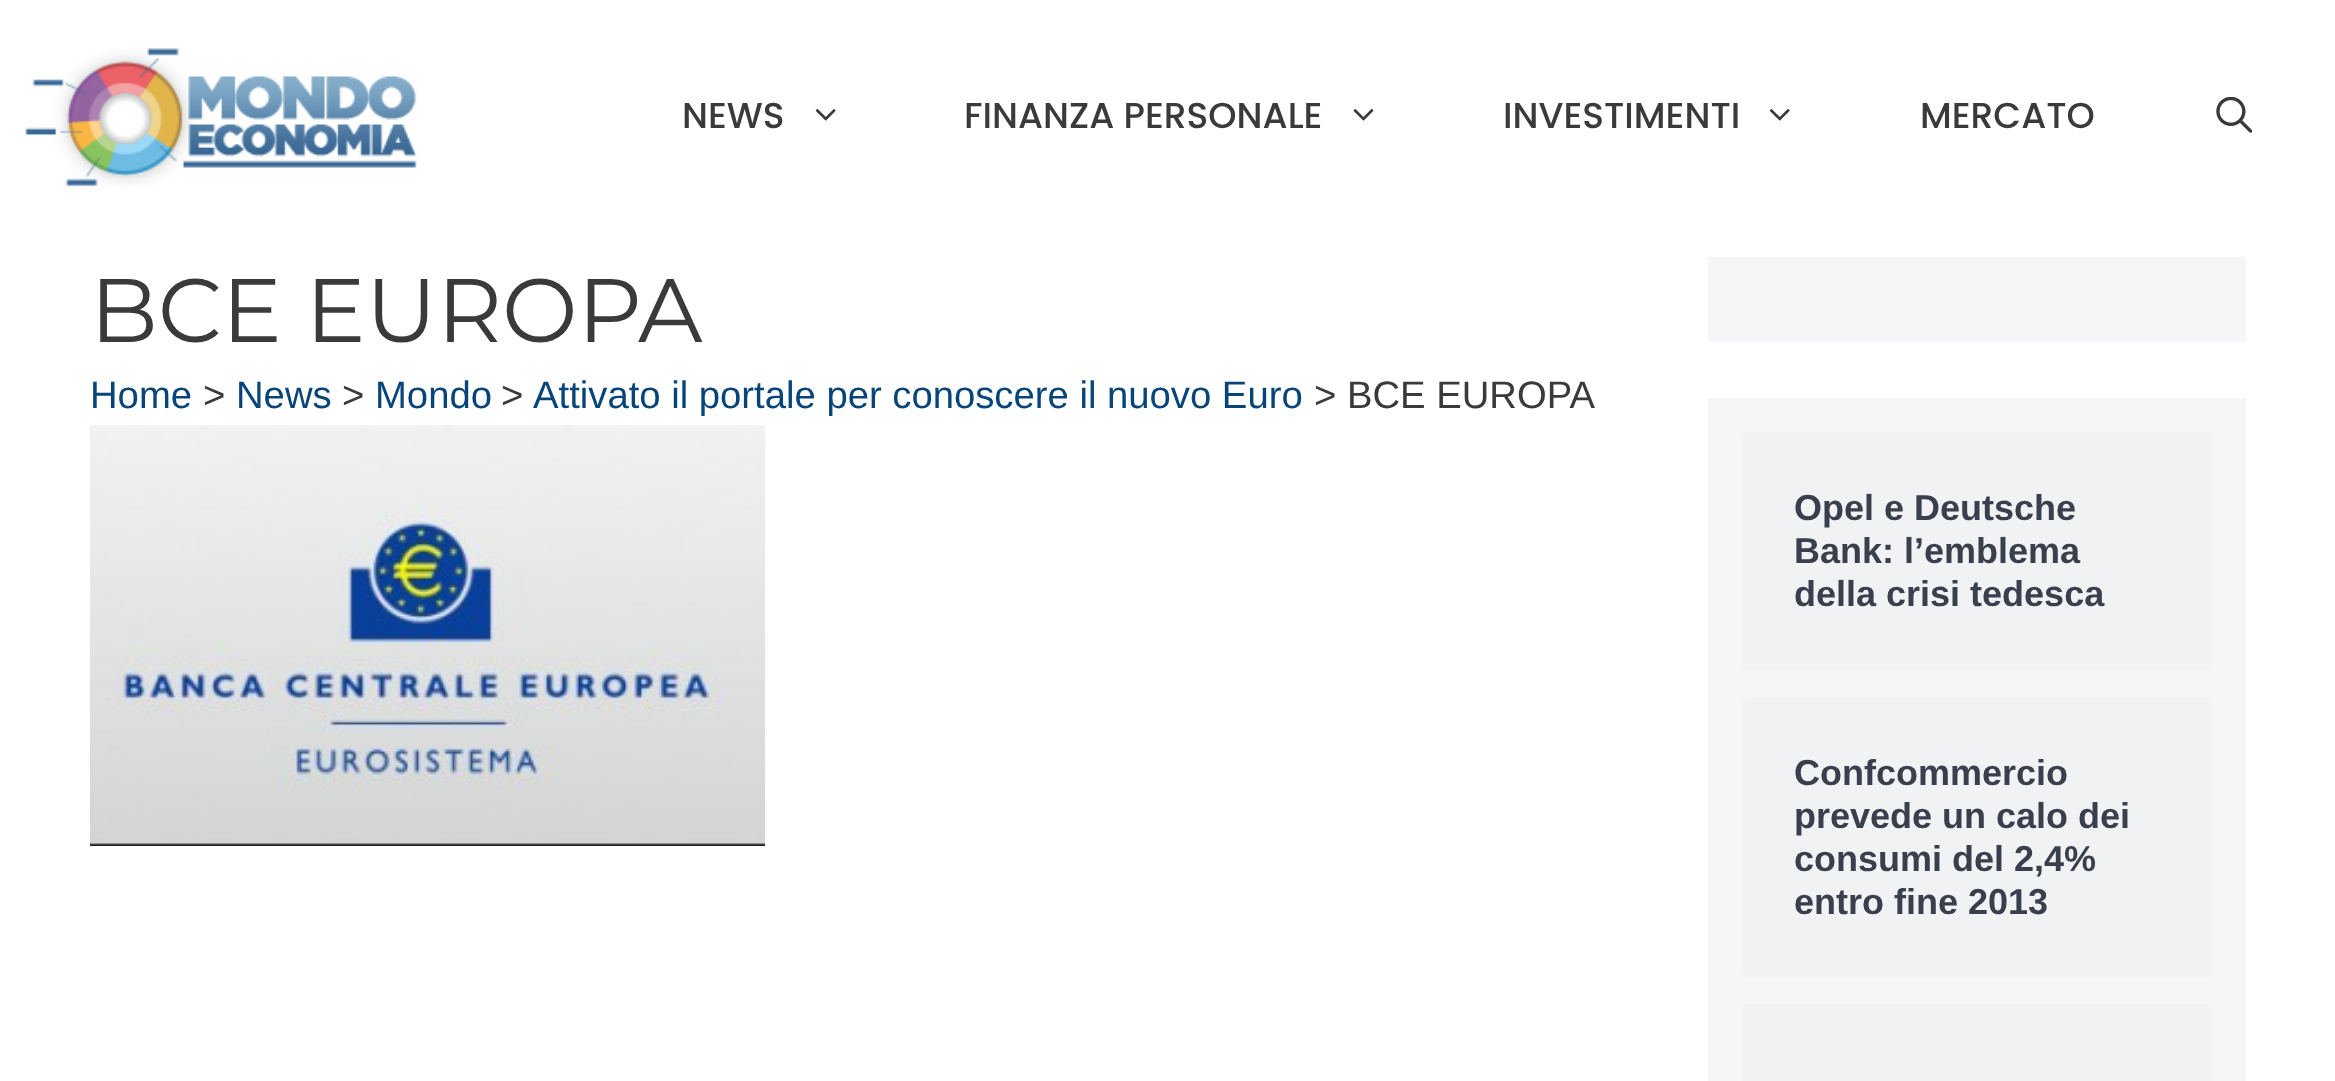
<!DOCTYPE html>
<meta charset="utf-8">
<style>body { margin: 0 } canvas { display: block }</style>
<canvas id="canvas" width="2335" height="1081"></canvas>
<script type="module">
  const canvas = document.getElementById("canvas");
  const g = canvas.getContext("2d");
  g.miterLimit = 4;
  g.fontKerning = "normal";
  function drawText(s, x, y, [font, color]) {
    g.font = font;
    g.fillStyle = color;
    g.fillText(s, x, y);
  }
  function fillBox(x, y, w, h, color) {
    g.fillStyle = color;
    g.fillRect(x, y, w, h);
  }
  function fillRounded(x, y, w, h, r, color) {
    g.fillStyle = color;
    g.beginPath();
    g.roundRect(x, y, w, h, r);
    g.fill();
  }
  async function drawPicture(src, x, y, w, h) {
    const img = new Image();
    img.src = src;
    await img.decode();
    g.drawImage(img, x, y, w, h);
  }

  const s1 = ["500 36px Poppins", "#3A3A3A"];
  const s2 = ["90px Montserrat", "#3A3A3A"];
  const s3 = ["38.25px Liberation Sans", "#06447A"];
  const s4 = ["38.25px Liberation Sans", "#3A3A3A"];
  const s5 = ["bold 36px Liberation Sans", "#393F4C"];

  fillBox(0, 0, 2335, 1081, "#FFFFFF");
  await drawPicture("pic1.png", 25, 48, 392, 139);
  drawText("NEWS", 682, 128, s1);
  await drawPicture("pic2.png", 815, 109, 21, 12);
  drawText("FINANZA PERSONALE", 964, 128, s1);
  await drawPicture("pic3.png", 1353, 109, 21, 12);
  drawText("INVESTIMENTI", 1503, 128, s1);
  await drawPicture("pic2.png", 1769, 109, 21, 12);
  drawText("MERCATO", 1920, 128, s1);
  await drawPicture("pic4.png", 2216, 97, 36, 36);
  drawText("BCE EUROPA", 90, 342, s2);
  drawText("Home", 90, 408, s3);
  drawText(">", 203, 408, s4);
  drawText("News", 236, 408, s3);
  drawText(">", 342, 408, s4);
  drawText("Mondo", 375, 408, s3);
  drawText(">", 501, 408, s4);
  drawText("Attivato il portale per conoscere il nuovo Euro", 533, 408, s3);
  drawText("> BCE EUROPA", 1314, 408, s4);
  await drawPicture("pic5.png", 90, 425, 675, 421);
  fillBox(1708, 257, 538, 85, "#F4F6F7");
  fillBox(1708, 398, 538, 683, "#F4F6F7");
  fillRounded(1742, 432, 470, 239, 7, "#F0F2F4");
  drawText("Opel e Deutsche", 1794, 520, s5);
  drawText("Bank: l’emblema", 1794, 563, s5);
  drawText("della crisi tedesca", 1794, 606, s5);
  fillRounded(1742, 698, 470, 279, 7, "#F0F2F4");
  drawText("Confcommercio", 1794, 785, s5);
  drawText("prevede un calo dei", 1794, 828, s5);
  drawText("consumi del 2,4%", 1794, 871, s5);
  drawText("entro fine 2013", 1794, 914, s5);
  fillRounded(1742, 1004, 470, 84, 7, "#F0F2F4");
</script>
